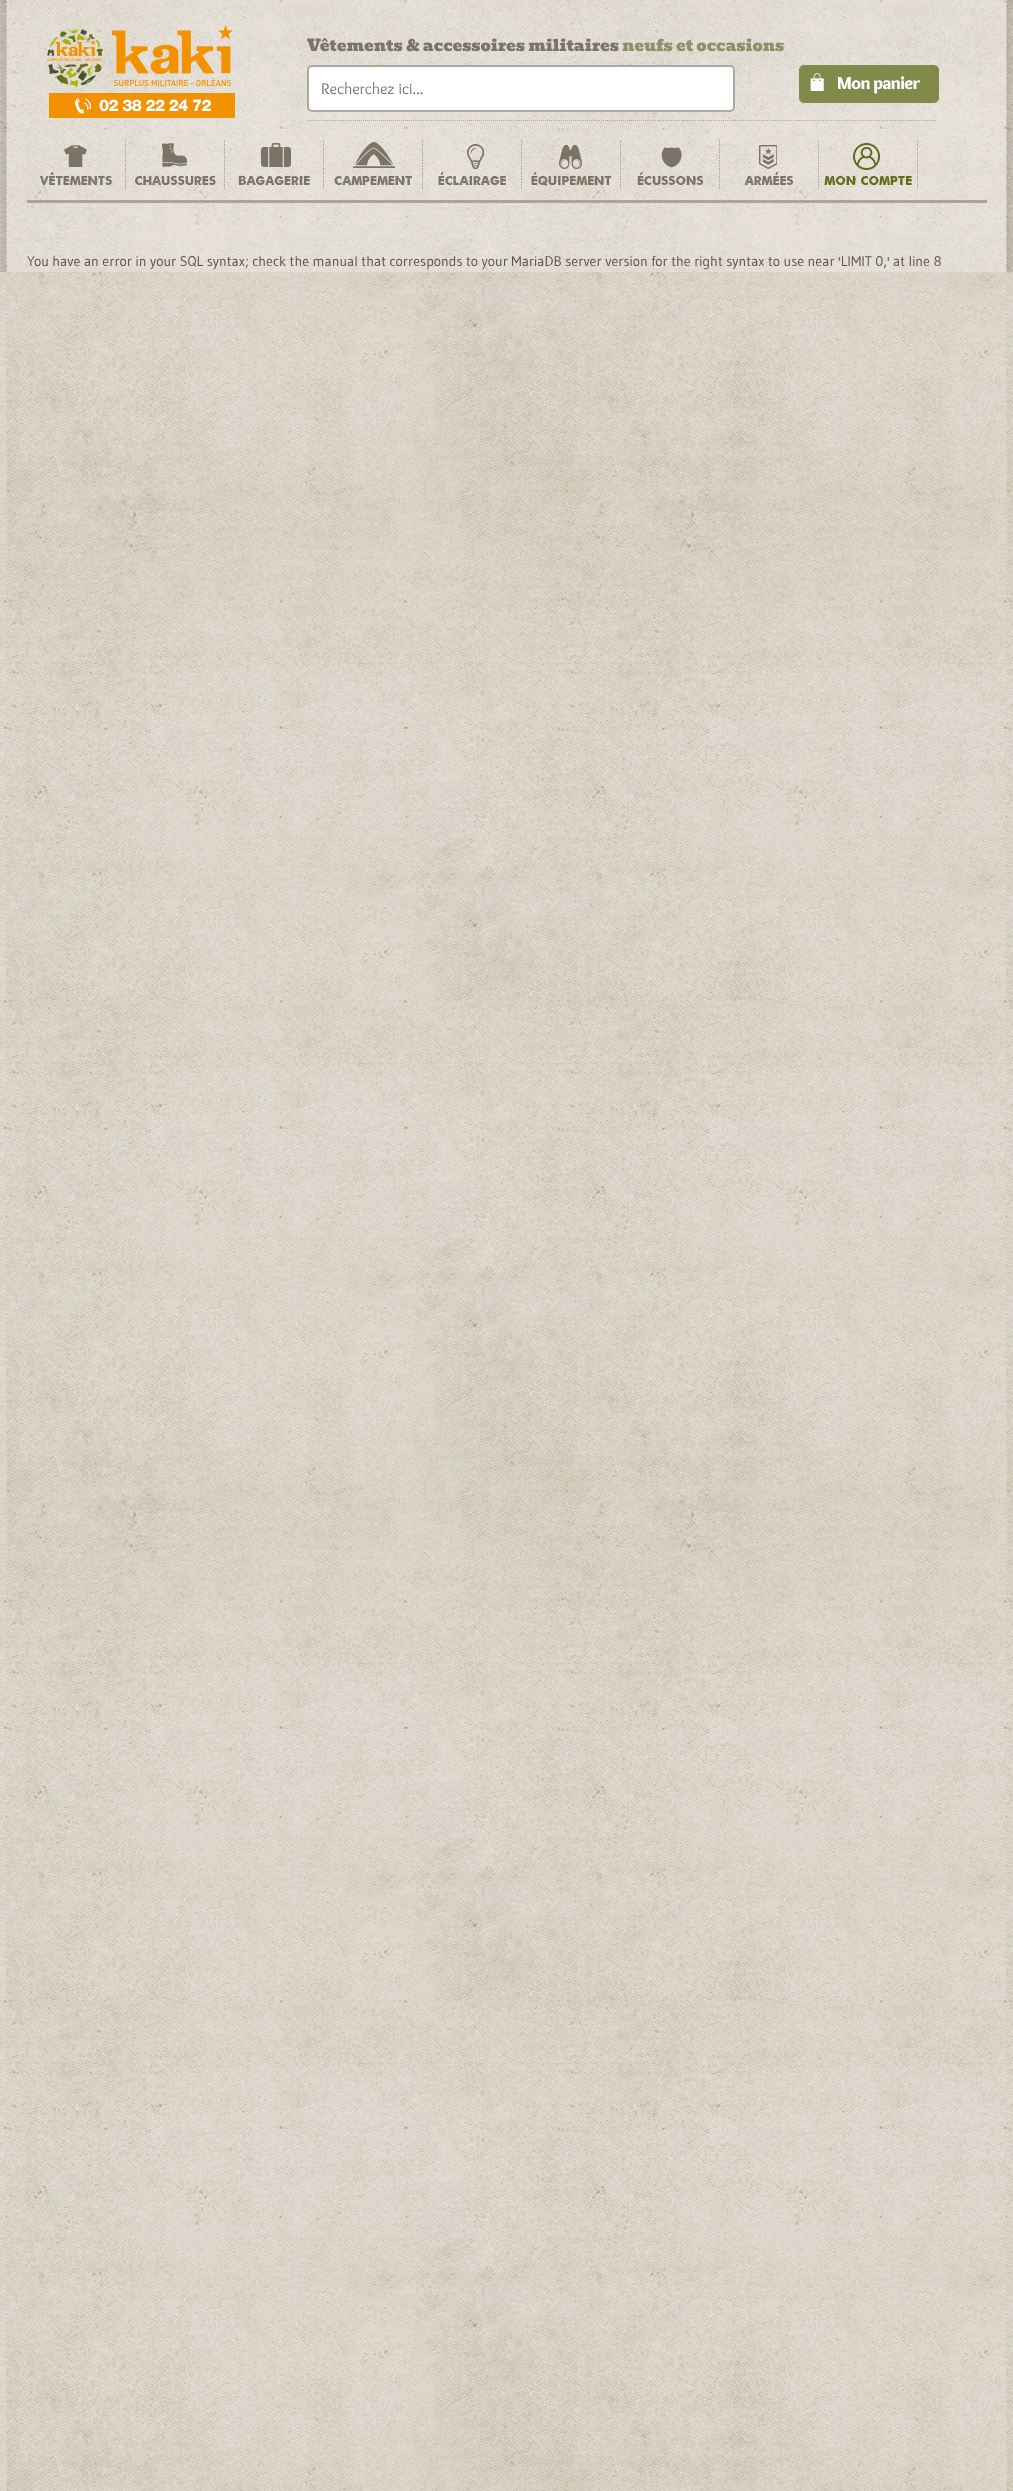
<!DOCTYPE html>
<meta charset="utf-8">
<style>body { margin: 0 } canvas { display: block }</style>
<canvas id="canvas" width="1013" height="2491"></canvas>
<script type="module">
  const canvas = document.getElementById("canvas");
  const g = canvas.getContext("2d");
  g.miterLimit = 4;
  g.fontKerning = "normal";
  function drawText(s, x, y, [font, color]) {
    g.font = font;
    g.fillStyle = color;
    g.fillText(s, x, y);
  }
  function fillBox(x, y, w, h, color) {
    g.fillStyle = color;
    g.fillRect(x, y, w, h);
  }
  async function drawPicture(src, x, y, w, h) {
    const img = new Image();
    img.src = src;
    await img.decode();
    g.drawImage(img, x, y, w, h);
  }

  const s1 = ["16px Bevan", "#7F736A"];
  const s2 = ["16px Bevan", "#8C916A"];
  const s3 = ["16px Overlock", "#757575"];
  const s4 = ["14px Gudea", "#5A5349"];

  fillBox(0, 0, 1013, 2491, "#FFFFFF");
  await drawPicture("pic1.png", 0, 0, 1013, 2491);
  await drawPicture("pic2.png", 0, 0, 1013, 272);
  fillBox(27, 200, 960, 3, "#ACA39A");
  await drawPicture("pic3.png", 47, 25, 186, 62);
  g.beginPath();
  g.moveTo(307, 120.5);
  g.lineTo(937, 120.5);
  g.strokeStyle = "#B0A99D";
  g.setLineDash([1, 1]);
  g.stroke();
  drawText("Vêtements & accessoires militaires", 307, 51, s1);
  drawText("neufs et occasions", 622, 51, s2);
  g.fillStyle = "#FFFFFF";
  g.beginPath();
  g.roundRect(308, 66, 426, 45, 4);
  g.fill();
  g.strokeStyle = "#B0A89E";
  g.lineWidth = 2;
  g.setLineDash([]);
  g.stroke();
  drawText("Recherchez ici...", 321, 94, s3);
  await drawPicture("pic4.png", 799, 65, 140, 38);
  await drawPicture("pic5.png", 49, 93, 186, 25);
  g.beginPath();
  g.moveTo(125.5, 140);
  g.lineTo(125.5, 190);
  g.strokeStyle = "#A39B97";
  g.lineWidth = 1;
  g.setLineDash([1, 1]);
  g.stroke();
  await drawPicture("pic6.png", 40, 145, 72, 40);
  g.beginPath();
  g.moveTo(224.5, 140);
  g.lineTo(224.5, 190);
  g.stroke();
  await drawPicture("pic7.png", 135, 143, 81, 42);
  g.beginPath();
  g.moveTo(323.5, 140);
  g.lineTo(323.5, 190);
  g.stroke();
  await drawPicture("pic8.png", 238, 143, 72, 42);
  g.beginPath();
  g.moveTo(422.5, 140);
  g.lineTo(422.5, 190);
  g.stroke();
  await drawPicture("pic9.png", 334, 142, 78, 43);
  g.beginPath();
  g.moveTo(521.5, 140);
  g.lineTo(521.5, 190);
  g.stroke();
  await drawPicture("pic10.png", 438, 144, 68, 41);
  g.beginPath();
  g.moveTo(620.5, 140);
  g.lineTo(620.5, 190);
  g.stroke();
  await drawPicture("pic11.png", 531, 145, 81, 41);
  g.beginPath();
  g.moveTo(719.5, 140);
  g.lineTo(719.5, 190);
  g.stroke();
  await drawPicture("pic12.png", 637, 147, 67, 38);
  g.beginPath();
  g.moveTo(818.5, 140);
  g.lineTo(818.5, 190);
  g.stroke();
  await drawPicture("pic13.png", 744, 145, 50, 40);
  g.beginPath();
  g.moveTo(917.5, 140);
  g.lineTo(917.5, 190);
  g.stroke();
  await drawPicture("pic14.png", 824, 143, 88, 42);
  drawText("You have an error in your SQL syntax; check the manual that corresponds to your MariaDB server version for the right syntax to use near 'LIMIT 0,' at line 8", 27, 266, s4);
</script>
